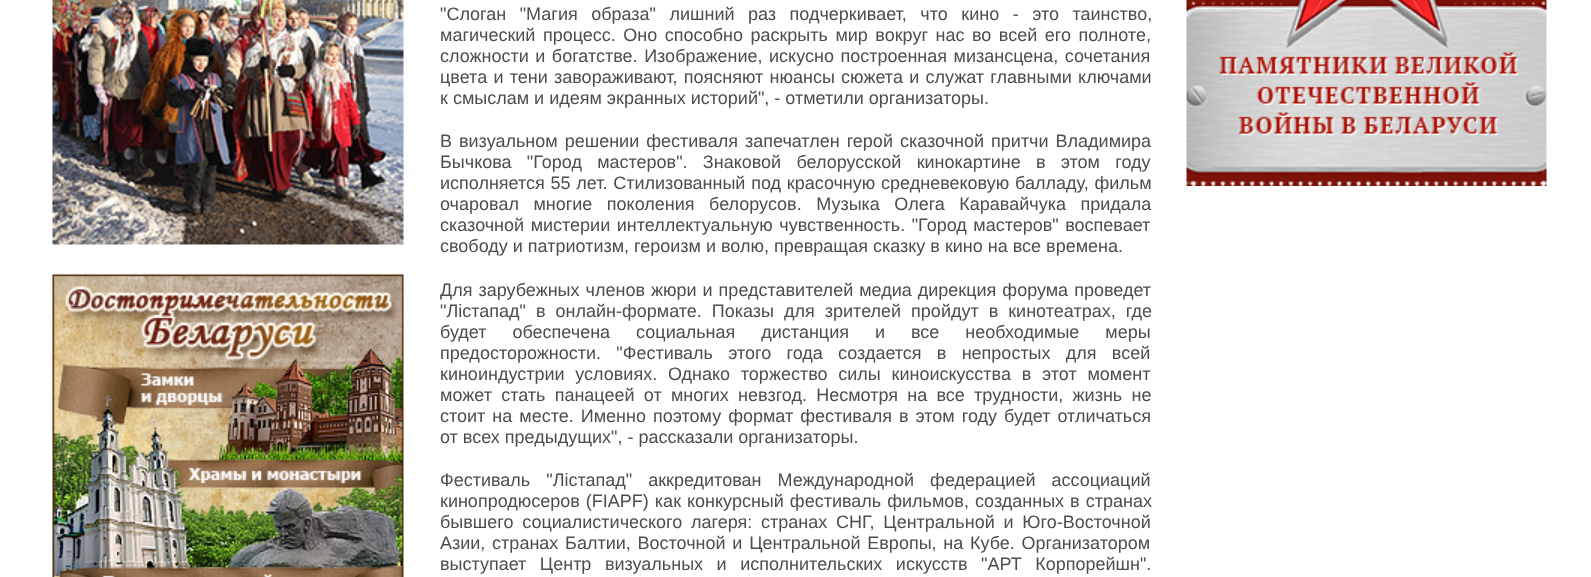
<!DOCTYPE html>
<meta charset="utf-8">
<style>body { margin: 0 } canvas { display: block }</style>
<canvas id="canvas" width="1591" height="577"></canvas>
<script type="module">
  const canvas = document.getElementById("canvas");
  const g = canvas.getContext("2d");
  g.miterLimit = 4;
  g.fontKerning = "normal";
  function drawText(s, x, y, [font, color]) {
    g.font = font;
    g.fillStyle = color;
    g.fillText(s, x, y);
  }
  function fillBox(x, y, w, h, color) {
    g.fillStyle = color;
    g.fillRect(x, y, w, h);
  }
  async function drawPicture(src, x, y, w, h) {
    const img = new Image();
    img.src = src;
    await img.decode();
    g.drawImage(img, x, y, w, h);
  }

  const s1 = ["18px Liberation Sans", "#4D4D4D"];

  fillBox(0, 0, 1591, 577, "#FFFFFF");
  await drawPicture("pic1.png", 52, 0, 352, 245);
  await drawPicture("pic2.png", 52, 274, 352, 303);
  g.wordSpacing = "8.5px";
  drawText("\"Слоган \"Магия образа\" лишний раз подчеркивает, что кино - это таинство,", 440, 20, s1);
  g.wordSpacing = "2.5px";
  drawText("магический процесс. Оно способно раскрыть мир вокруг нас во всей его полноте,", 440, 41, s1);
  g.wordSpacing = "1.5px";
  drawText("сложности и богатстве. Изображение, искусно построенная мизансцена, сочетания", 440, 62, s1);
  g.wordSpacing = "1.25px";
  drawText("цвета и тени завораживают, поясняют нюансы сюжета и служат главными ключами", 440, 83, s1);
  g.wordSpacing = "0px";
  drawText("к смыслам и идеям экранных историй\", - отметили организаторы.", 440, 104, s1);
  g.wordSpacing = "2px";
  drawText("В визуальном решении фестиваля запечатлен герой сказочной притчи Владимира", 440, 147, s1);
  g.wordSpacing = "10.25px";
  drawText("Бычкова \"Город мастеров\". Знаковой белорусской кинокартине в этом году", 440, 168, s1);
  g.wordSpacing = "0.75px";
  drawText("исполняется 55 лет. Стилизованный под красочную средневековую балладу, фильм", 440, 189, s1);
  g.wordSpacing = "9.5px";
  drawText("очаровал многие поколения белорусов. Музыка Олега Каравайчука придала", 440, 210, s1);
  g.wordSpacing = "1.5px";
  drawText("сказочной мистерии интеллектуальную чувственность. \"Город мастеров\" воспевает", 440, 231, s1);
  g.wordSpacing = "0px";
  drawText("свободу и патриотизм, героизм и волю, превращая сказку в кино на все времена.", 440, 252, s1);
  g.wordSpacing = "1px";
  drawText("Для зарубежных членов жюри и представителей медиа дирекция форума проведет", 440, 296, s1);
  g.wordSpacing = "5px";
  drawText("\"Лістапад\" в онлайн-формате. Показы для зрителей пройдут в кинотеатрах, где", 440, 317, s1);
  g.wordSpacing = "21px";
  drawText("будет обеспечена социальная дистанция и все необходимые меры", 440, 338, s1);
  g.wordSpacing = "10.25px";
  drawText("предосторожности. \"Фестиваль этого года создается в непростых для всей", 440, 359, s1);
  g.wordSpacing = "5.75px";
  drawText("киноиндустрии условиях. Однако торжество силы киноискусства в этот момент", 440, 380, s1);
  g.wordSpacing = "4.25px";
  drawText("может стать панацеей от многих невзгод. Несмотря на все трудности, жизнь не", 440, 401, s1);
  g.wordSpacing = "2px";
  drawText("стоит на месте. Именно поэтому формат фестиваля в этом году будет отличаться", 440, 422, s1);
  g.wordSpacing = "0px";
  drawText("от всех предыдущих\", - рассказали организаторы.", 440, 443, s1);
  g.wordSpacing = "11px";
  drawText("Фестиваль \"Лістапад\" аккредитован Международной федерацией ассоциаций", 440, 486, s1);
  g.wordSpacing = "1px";
  drawText("кинопродюсеров (FIAPF) как конкурсный фестиваль фильмов, созданных в странах", 440, 507, s1);
  g.wordSpacing = "3.75px";
  drawText("бывшего социалистического лагеря: странах СНГ, Центральной и Юго-Восточной", 440, 528, s1);
  g.wordSpacing = "1.75px";
  drawText("Азии, странах Балтии, Восточной и Центральной Европы, на Кубе. Организатором", 440, 549, s1);
  g.wordSpacing = "8.5px";
  drawText("выступает Центр визуальных и исполнительских искусств \"АРТ Корпорейшн\".", 440, 570, s1);
  await drawPicture("pic3.png", 1186, 0, 361, 186);
</script>
